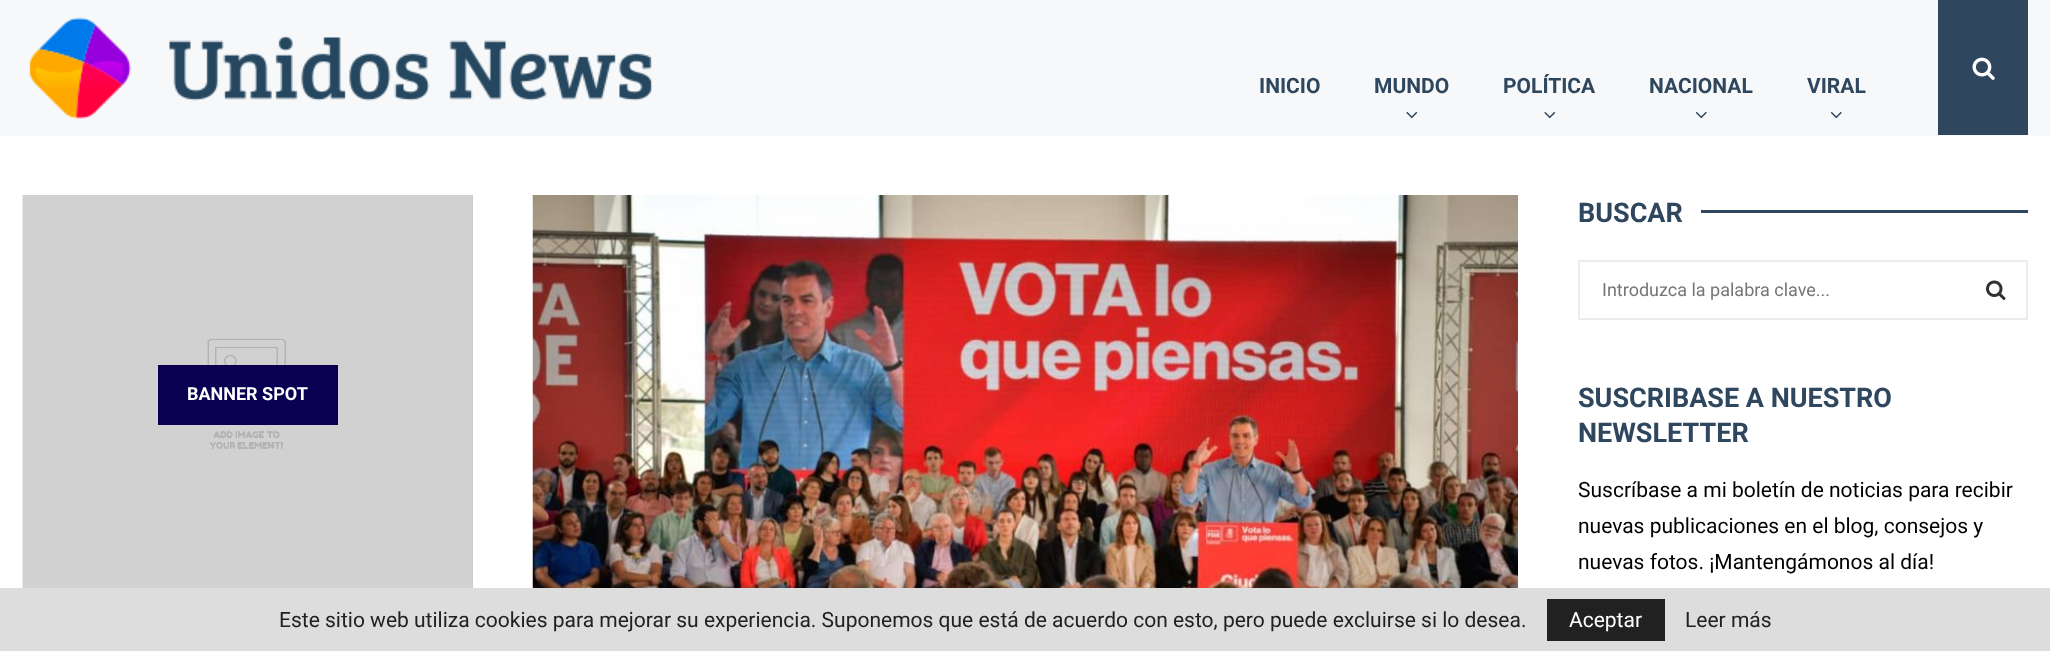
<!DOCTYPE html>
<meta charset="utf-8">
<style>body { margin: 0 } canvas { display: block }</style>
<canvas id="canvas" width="2050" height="651"></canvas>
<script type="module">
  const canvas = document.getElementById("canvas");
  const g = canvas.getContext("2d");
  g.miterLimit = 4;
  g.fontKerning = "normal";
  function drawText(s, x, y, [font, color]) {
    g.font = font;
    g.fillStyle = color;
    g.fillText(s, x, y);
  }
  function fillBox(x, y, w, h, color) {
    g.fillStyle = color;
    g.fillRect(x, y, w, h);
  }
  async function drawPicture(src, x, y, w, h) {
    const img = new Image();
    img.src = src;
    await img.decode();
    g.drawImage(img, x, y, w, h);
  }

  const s1 = ["bold 21px Roboto", "#2F475E"];
  const s2 = ["bold 18px Roboto", "#FFFFFF"];
  const s3 = ["bold 27px Roboto", "#2F475E"];
  const s4 = ["18px Roboto", "#757575"];
  const s5 = ["21px Roboto", "#000000"];
  const s6 = ["21px Roboto", "#212121"];
  const s7 = ["21px Roboto", "#FFFFFF"];

  fillBox(0, 0, 2050, 651, "#FFFFFF");
  fillBox(0, 0, 2050, 136, "#F7F8F9");
  await drawPicture("pic1.png", 28, 17, 625, 102);
  drawText("INICIO", 1259, 93, s1);
  drawText("MUNDO", 1374, 93, s1);
  await drawPicture("pic2.png", 1406, 111, 12, 8);
  drawText("POLÍTICA", 1503, 93, s1);
  await drawPicture("pic2.png", 1544, 111, 12, 8);
  drawText("NACIONAL", 1649, 93, s1);
  await drawPicture("pic3.png", 1695, 111, 12, 8);
  drawText("VIRAL", 1807, 93, s1);
  await drawPicture("pic3.png", 1830, 111, 12, 8);
  fillBox(1938, 0, 90, 135, "#2F475E");
  await drawPicture("pic4.png", 1972, 57, 23, 23);
  fillBox(472, 195, 1, 393, "#CCCCCC");
  await drawPicture("pic5.png", 23, 195, 449, 393);
  fillBox(22, 195, 1, 400, "#ECECEC");
  fillBox(158, 365, 180, 60, "#090051");
  drawText("BANNER SPOT", 187, 400, s2);
  await drawPicture("pic6.png", 532, 195, 986, 393);
  drawText("BUSCAR", 1578, 222, s3);
  fillBox(1701, 210, 327, 3, "#2F475E");
  g.strokeStyle = "#ECECEC";
  g.lineWidth = 2;
  g.strokeRect(1579, 261, 448, 58);
  drawText("Introduzca la palabra clave...", 1602, 296, s4);
  await drawPicture("pic7.png", 1986, 280, 20, 20);
  drawText("SUSCRIBASE A NUESTRO", 1578, 407, s3);
  drawText("NEWSLETTER", 1578, 442, s3);
  drawText("Suscríbase a mi boletín de noticias para recibir", 1578, 497, s5);
  drawText("nuevas publicaciones en el blog, consejos y", 1578, 533, s5);
  drawText("nuevas fotos. ¡Mantengámonos al día!", 1578, 569, s5);
  fillBox(0, 588, 2050, 63, "#DDDDDD");
  drawText("Este sitio web utiliza cookies para mejorar su experiencia. Suponemos que está de acuerdo con esto, pero puede excluirse si lo desea.", 279, 627, s6);
  fillBox(1547, 599, 118, 42, "#212121");
  drawText("Aceptar", 1569, 627, s7);
  drawText("Leer más", 1685, 627, s6);
</script>
